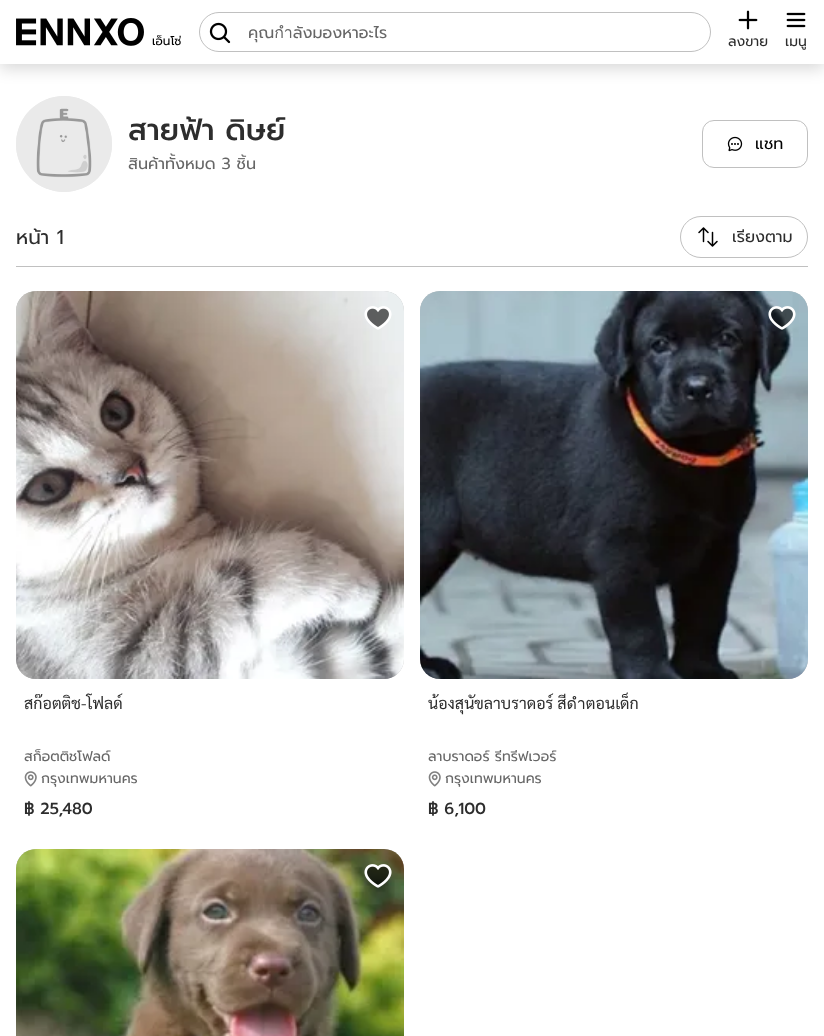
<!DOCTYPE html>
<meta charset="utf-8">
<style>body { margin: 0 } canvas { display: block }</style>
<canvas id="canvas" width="824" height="1036"></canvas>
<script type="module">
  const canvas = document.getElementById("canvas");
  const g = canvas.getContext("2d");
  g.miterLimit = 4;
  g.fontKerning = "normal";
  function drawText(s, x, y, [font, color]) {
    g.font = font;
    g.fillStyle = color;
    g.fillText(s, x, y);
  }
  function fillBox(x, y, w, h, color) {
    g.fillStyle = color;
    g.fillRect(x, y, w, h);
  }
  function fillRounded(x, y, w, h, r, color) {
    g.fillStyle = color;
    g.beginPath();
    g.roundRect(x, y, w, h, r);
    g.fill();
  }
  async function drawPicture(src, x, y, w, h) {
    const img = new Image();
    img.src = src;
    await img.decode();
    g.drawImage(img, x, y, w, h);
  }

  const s1 = ["12px Prompt", "#000000"];
  const s2 = ["16px Prompt", "#666666"];
  const s3 = ["14px Prompt", "#2D2D2D"];
  const s4 = ["500 30px Prompt", "#2D2D2D"];
  const s5 = ["16px Prompt", "#000000"];
  const s6 = ["20px Prompt", "#2D2D2D"];
  const s7 = ["16px Prompt", "#2D2D2D"];
  const s8 = ["16px Sarabun", "#2D2D2D"];
  const s9 = ["14px Prompt", "#666666"];
  const s10 = ["500 16px Prompt", "#2D2D2D"];

  fillBox(0, 0, 824, 1036, "#FFFFFF");
  g.fillStyle = "rgba(0, 0, 0, 0.15)";
  g.filter = "blur(7.5px)";
  g.beginPath();
  g.rect(0, 5, 824, 64);
  g.fill();
  g.filter = "none";
  fillBox(0, 0, 824, 64, "#FFFFFF");
  await drawPicture("pic1.png", 16, 18, 128, 28);
  drawText("เอ็นโซ่", 152, 45, s1);
  g.beginPath();
  g.roundRect(199.5, 12.5, 511, 39, 19.5);
  g.strokeStyle = "#C0C0C0";
  g.stroke();
  await drawPicture("pic2.png", 209, 22, 22, 22);
  drawText("คุณกำลังมองหาอะไร", 248, 38, s2);
  await drawPicture("pic3.png", 738, 10, 20, 20);
  drawText("ลงขาย", 728, 46, s3);
  await drawPicture("pic4.png", 786, 12, 20, 16);
  drawText("เมนู", 785, 46, s3);
  g.fillStyle = "#EAEAEA";
  g.beginPath();
  g.arc(64, 144, 48, 0, Math.PI * 2);
  g.fill();
  await drawPicture("pic5.png", 16, 96, 96, 96);
  drawText("สายฟ้า ดิษย์", 128, 140, s4);
  g.save();
  g.beginPath();
  g.rect(128, 96, 157, 96);
  g.clip();
  drawText("สินค้าทั้งหมด 3 ชิ้น", 128, 169, s2);
  g.restore();
  g.beginPath();
  g.roundRect(702.5, 120.5, 105, 47, 11.5);
  g.stroke();
  await drawPicture("pic6.png", 727, 136, 16, 16);
  drawText("แชท", 755, 149, s5);
  fillBox(16, 266, 792, 1, "#C0C0C0");
  drawText("หน้า 1", 16, 244, s6);
  g.beginPath();
  g.roundRect(680.5, 216.5, 127, 41, 20.5);
  g.stroke();
  await drawPicture("pic7.png", 698, 227, 20, 20);
  g.save();
  g.beginPath();
  g.rect(732, 225, 60, 24);
  g.clip();
  drawText("เรียงตาม", 732, 242, s7);
  g.restore();
  fillRounded(16, 291, 388, 388, 20, "#C0C0C0");
  await drawPicture("pic8.png", 16, 291, 388, 388);
  await drawPicture("pic9.png", 364, 306, 28, 24);
  drawText("สก๊อตติช-โฟลด์", 24, 709, s8);
  drawText("สก็อตติชโฟลด์", 24, 761, s9);
  await drawPicture("pic10.png", 24, 771, 13, 16);
  drawText("กรุงเทพมหานคร", 41, 783, s9);
  drawText("฿ 25,480", 24, 814, s10);
  fillRounded(420, 291, 388, 388, 20, "#C0C0C0");
  await drawPicture("pic11.png", 420, 291, 388, 388);
  await drawPicture("pic12.png", 768, 306, 28, 24);
  g.save();
  g.beginPath();
  g.rect(428, 691, 372, 48);
  g.clip();
  drawText("น้องสุนัขลาบราดอร์ สีดำตอนเด็ก", 428, 709, s8);
  g.restore();
  drawText("ลาบราดอร์ รีทรีฟเวอร์", 428, 761, s9);
  await drawPicture("pic10.png", 428, 771, 13, 16);
  drawText("กรุงเทพมหานคร", 445, 783, s9);
  drawText("฿ 6,100", 428, 814, s10);
  fillRounded(16, 849, 388, 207, 20, "#C0C0C0");
  await drawPicture("pic13.png", 16, 849, 388, 187);
  await drawPicture("pic14.png", 364, 864, 28, 24);
</script>
